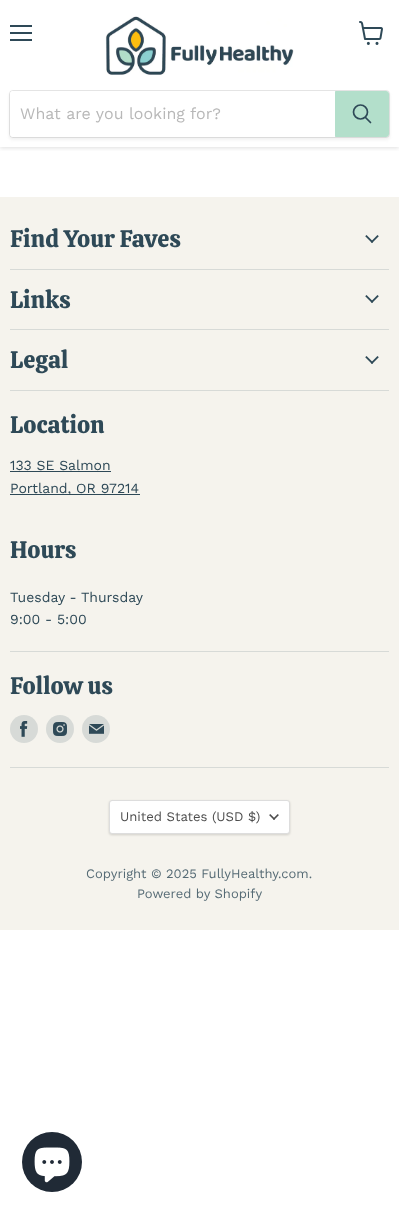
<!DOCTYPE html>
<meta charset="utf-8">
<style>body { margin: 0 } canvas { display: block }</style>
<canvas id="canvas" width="399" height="1213"></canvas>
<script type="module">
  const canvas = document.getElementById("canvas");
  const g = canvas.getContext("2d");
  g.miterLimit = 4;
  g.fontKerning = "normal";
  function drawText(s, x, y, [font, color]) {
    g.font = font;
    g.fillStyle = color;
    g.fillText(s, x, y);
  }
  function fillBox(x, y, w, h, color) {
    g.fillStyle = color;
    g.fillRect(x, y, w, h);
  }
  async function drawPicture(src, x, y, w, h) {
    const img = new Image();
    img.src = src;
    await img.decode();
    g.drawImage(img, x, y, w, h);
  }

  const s1 = ["16px Work Sans", "#B8B8B8"];
  const s2 = ["24px Calistoga", "#2E4957"];
  const s3 = ["14px Work Sans", "#2E4957"];
  const s4 = ["13.1px Work Sans", "#4D4D4D"];
  const s5 = ["13px Work Sans", "#566B75"];

  fillBox(0, 0, 399, 1213, "#FFFFFF");
  g.save();
  g.beginPath();
  g.rect(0, 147, 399, 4);
  g.clip();
  g.fillStyle = "rgba(128, 128, 128, 0.25)";
  g.filter = "blur(2px)";
  g.beginPath();
  g.rect(0, 1, 399, 147);
  g.fill();
  g.filter = "none";
  g.restore();
  fillBox(10, 25, 22, 2, "#2E4957");
  fillBox(10, 32, 22, 2, "#2E4957");
  fillBox(10, 39, 22, 2, "#2E4957");
  await drawPicture("pic1.png", 359, 21, 24, 24);
  await drawPicture("pic2.png", 105, 16, 189, 59);
  g.fillStyle = "rgba(128, 128, 128, 0.11)";
  g.filter = "blur(1.5px)";
  g.beginPath();
  g.roundRect(9, 92, 381, 48, 4);
  g.fill();
  g.filter = "none";
  g.beginPath();
  g.roundRect(9.5, 90.5, 380, 47, 3.5);
  g.strokeStyle = "rgba(128, 128, 128, 0.2)";
  g.stroke();
  g.fillStyle = "#FFFFFF";
  g.beginPath();
  g.roundRect(10, 91, 325, 46, [3, 0, 0, 3]);
  g.fill();
  drawText("What are you looking for?", 20, 119, s1);
  g.fillStyle = "#B3DFCB";
  g.beginPath();
  g.roundRect(335.5, 91.5, 53, 45, [0, 2.5, 2.5, 0]);
  g.fill();
  g.strokeStyle = "#B3DFCB";
  g.stroke();
  g.beginPath();
  g.moveTo(370.5, 122.5);
  g.lineTo(365.5, 117.5);
  g.strokeStyle = "#2E4957";
  g.lineWidth = 1.7;
  g.lineCap = "round";
  g.stroke();
  g.beginPath();
  g.arc(360.5, 112, 7, 0, Math.PI * 2);
  g.stroke();
  fillBox(0, 197, 399, 733, "#F5F3ED");
  fillBox(10, 269, 379, 1, "#D7DAD7");
  drawText("Find Your Faves", 10, 247, s2);
  await drawPicture("pic3.png", 365, 235, 14, 8);
  fillBox(10, 329, 379, 1, "#D7DAD7");
  drawText("Links", 10, 308, s2);
  await drawPicture("pic3.png", 365, 295, 14, 8);
  fillBox(10, 390, 379, 1, "#D7DAD7");
  drawText("Legal", 10, 368, s2);
  await drawPicture("pic3.png", 365, 356, 14, 8);
  fillBox(10, 651, 379, 1, "#D7DAD7");
  drawText("Location", 10, 433, s2);
  drawText("133 SE Salmon", 10, 470, s3);
  fillBox(10, 471, 101, 1, "#2E4957");
  fillBox(10, 494, 130, 1, "#2E4957");
  drawText("Portland, OR 97214", 10, 493, s3);
  drawText("Hours", 10, 558, s2);
  drawText("Tuesday - Thursday", 10, 602, s3);
  drawText("9:00 - 5:00", 10, 624, s3);
  fillBox(10, 767, 379, 1, "#D7DAD7");
  drawText("Follow us", 10, 694, s2);
  g.fillStyle = "#D7DAD7";
  g.beginPath();
  g.arc(24, 729, 14, 0, Math.PI * 2);
  g.fill();
  await drawPicture("pic4.png", 20, 721, 8, 16);
  g.beginPath();
  g.arc(60, 729, 14, 0, Math.PI * 2);
  g.fill();
  await drawPicture("pic5.png", 53, 722, 14, 14);
  g.beginPath();
  g.arc(96, 729, 14, 0, Math.PI * 2);
  g.fill();
  await drawPicture("pic6.png", 89, 724, 15, 10);
  g.fillStyle = "rgba(0, 0, 0, 0.15)";
  g.filter = "blur(1px)";
  g.beginPath();
  g.roundRect(109, 801, 181, 34, 3);
  g.fill();
  g.filter = "none";
  g.fillStyle = "#FFFFFF";
  g.beginPath();
  g.roundRect(109.5, 800.5, 180, 33, 2.5);
  g.fill();
  g.strokeStyle = "#DDDDDD";
  g.lineWidth = 1;
  g.stroke();
  drawText("United States (USD $)", 120, 821, s4);
  await drawPicture("pic7.png", 269, 814, 10, 6);
  drawText("Copyright © 2025 FullyHealthy.com.", 86, 878, s5);
  drawText("Powered by Shopify", 137, 898, s5);
  g.fillStyle = "#202A36";
  g.beginPath();
  g.arc(52, 1162, 30, 0, Math.PI * 2);
  g.fill();
  await drawPicture("pic8.png", 34, 1147, 36, 36);
</script>
